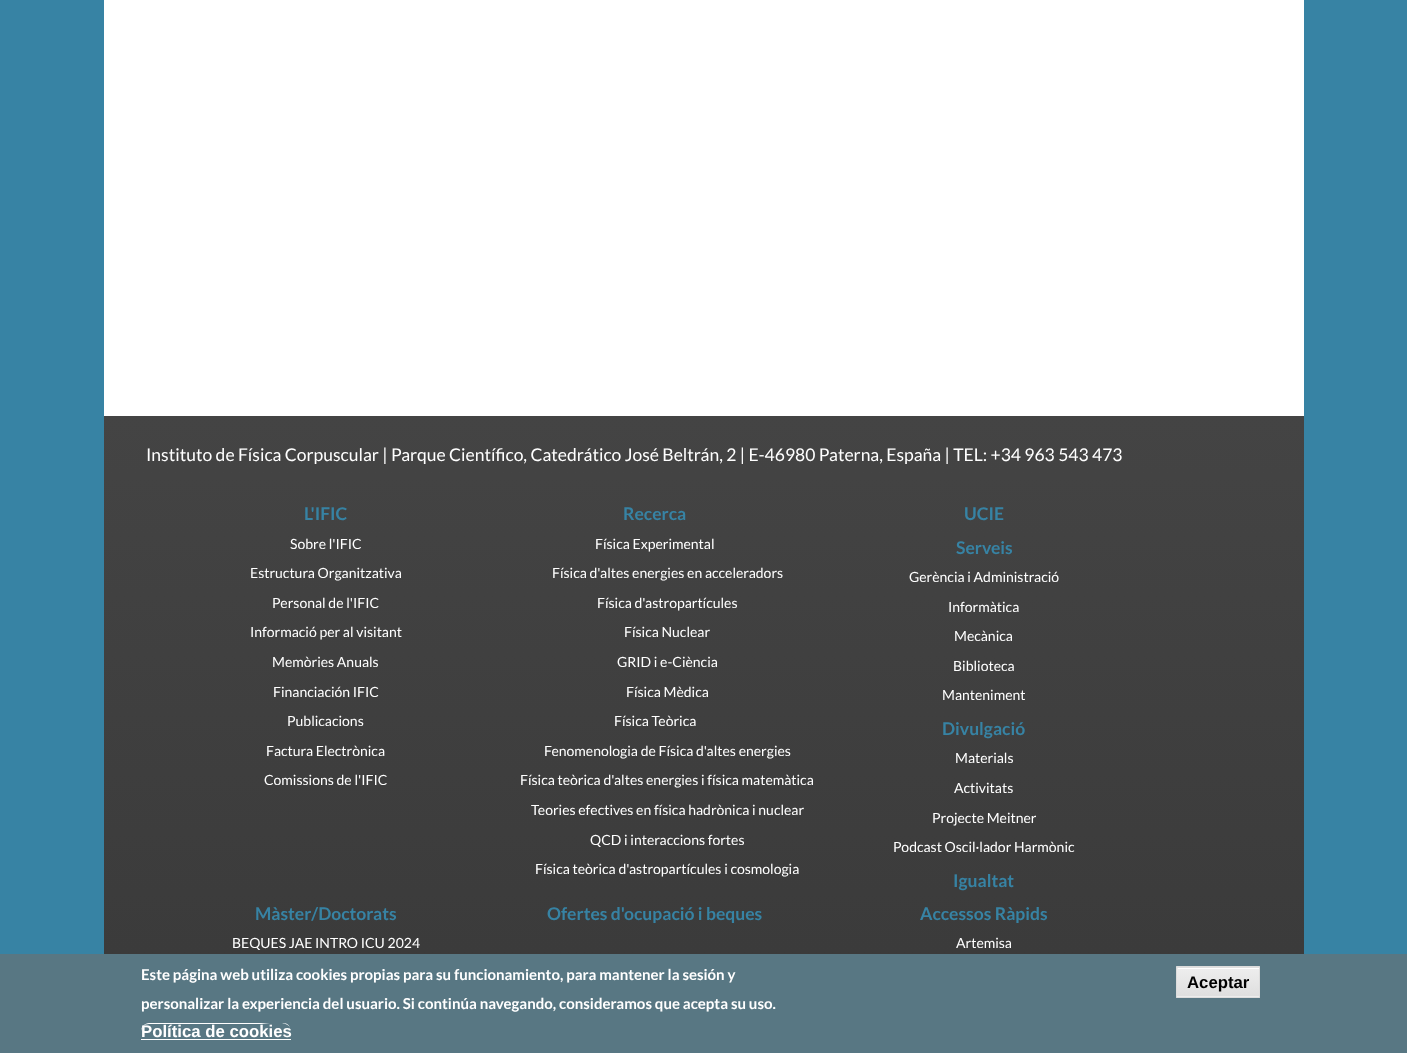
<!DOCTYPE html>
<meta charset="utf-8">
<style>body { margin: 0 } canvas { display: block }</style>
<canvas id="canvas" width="1407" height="1053"></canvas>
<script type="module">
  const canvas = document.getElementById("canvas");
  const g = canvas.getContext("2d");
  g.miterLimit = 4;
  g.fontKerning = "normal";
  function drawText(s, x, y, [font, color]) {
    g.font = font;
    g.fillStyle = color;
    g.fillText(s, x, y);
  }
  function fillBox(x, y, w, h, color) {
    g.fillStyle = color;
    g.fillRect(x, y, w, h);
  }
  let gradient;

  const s1 = ["17.5px Lato", "#FFFFFF"];
  const s2 = ["bold 17.5px Lato", "#3783A4"];
  const s3 = ["14px Lato", "#FFFFFF"];
  const s4 = ["bold 15px Lato", "#FFFFFF"];
  const s5 = ["bold 16.75px Liberation Sans", "#FFFFFF"];
  const s6 = ["bold 16.75px Liberation Sans", "#000000"];

  fillBox(0, 0, 1407, 1053, "#3783A4");
  fillBox(104, 0, 1200, 416, "#FFFFFF");
  gradient = g.createLinearGradient(704, 416, 704, 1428);
  gradient.addColorStop(0, "#444444");
  gradient.addColorStop(1, "#333333");
  g.fillStyle = gradient;
  g.fillRect(104, 416, 1200, 538);
  drawText("Instituto de Física Corpuscular | Parque Científico, Catedrático José Beltrán, 2 | E-46980 Paterna, España | TEL: +34 963 543 473", 146, 461, s1);
  drawText("L'IFIC", 304, 520, s2);
  drawText("Sobre l'IFIC", 290, 549, s3);
  drawText("Estructura Organitzativa", 250, 578, s3);
  drawText("Personal de l'IFIC", 272, 608, s3);
  drawText("Informació per al visitant", 250, 637, s3);
  drawText("Memòries Anuals", 272, 667, s3);
  drawText("Financiación IFIC", 273, 697, s3);
  drawText("Publicacions", 287, 726, s3);
  drawText("Factura Electrònica", 266, 756, s3);
  drawText("Comissions de l'IFIC", 264, 785, s3);
  drawText("Recerca", 623, 520, s2);
  drawText("Física Experimental", 595, 549, s3);
  drawText("Física d'altes energies en acceleradors", 552, 578, s3);
  drawText("Física d'astropartícules", 597, 608, s3);
  drawText("Física Nuclear", 624, 637, s3);
  drawText("GRID i e-Ciència", 617, 667, s3);
  drawText("Física Mèdica", 626, 697, s3);
  drawText("Física Teòrica", 614, 726, s3);
  drawText("Fenomenologia de Física d'altes energies", 544, 756, s3);
  drawText("Física teòrica d'altes energies i física matemàtica", 520, 785, s3);
  drawText("Teories efectives en física hadrònica i nuclear", 531, 815, s3);
  drawText("QCD i interaccions fortes", 590, 845, s3);
  drawText("Física teòrica d'astropartícules i cosmologia", 535, 874, s3);
  drawText("UCIE", 964, 520, s2);
  drawText("Serveis", 956, 554, s2);
  drawText("Gerència i Administració", 909, 582, s3);
  drawText("Informàtica", 948, 612, s3);
  drawText("Mecànica", 954, 641, s3);
  drawText("Biblioteca", 953, 671, s3);
  drawText("Manteniment", 942, 700, s3);
  drawText("Divulgació", 942, 735, s2);
  drawText("Materials", 955, 763, s3);
  drawText("Activitats", 954, 793, s3);
  drawText("Projecte Meitner", 932, 823, s3);
  drawText("Podcast Oscil·lador Harmònic", 893, 852, s3);
  drawText("Igualtat", 953, 887, s2);
  drawText("Màster/Doctorats", 255, 920, s2);
  drawText("BEQUES JAE INTRO ICU 2024", 232, 948, s3);
  drawText("Ofertes d'ocupació i beques", 547, 920, s2);
  drawText("Accessos Ràpids", 920, 920, s2);
  drawText("Artemisa", 956, 948, s3);
  fillBox(0, 954, 1407, 99, "#587783");
  drawText("Este página web utiliza cookies propias para su funcionamiento, para mantener la sesión y", 141, 980, s4);
  drawText("personalizar la experiencia del usuario. Si continúa navegando, consideramos que acepta su uso.", 141, 1009, s4);
  g.beginPath();
  g.moveTo(149, 1024);
  g.bezierCurveTo(144, 1024, 142, 1027, 141, 1031);
  g.bezierCurveTo(141, 1027, 145, 1023, 149, 1023);
  g.lineTo(270, 1023);
  g.lineTo(261, 1024);
  g.closePath();
  g.moveTo(282, 1023);
  g.bezierCurveTo(286, 1024, 289, 1025, 290, 1028);
  g.bezierCurveTo(289, 1024, 286, 1023, 282, 1023);
  g.closePath();
  g.moveTo(291, 1031);
  g.lineTo(291, 1035);
  g.closePath();
  g.fill("evenodd");
  drawText("Política de cookies", 141, 1037, s5);
  fillBox(141, 1039, 150, 1, "#FFFFFF");
  gradient = g.createLinearGradient(1218, 939, 1218, 968);
  gradient.addColorStop(0.05, "#EDEDED");
  gradient.addColorStop(1, "#DFDFDF");
  g.fillStyle = gradient;
  g.beginPath();
  g.roundRect(1176, 966, 84, 2, [1, 1, 0, 0]);
  g.fill();
  gradient = g.createLinearGradient(1218, 968, 1218, 996);
  gradient.addColorStop(0.05, "#EDEDED");
  gradient.addColorStop(1, "#DFDFDF");
  g.fillStyle = gradient;
  g.fillRect(1177, 968, 82, 28);
  gradient = g.createLinearGradient(1218, 996, 1218, 1025);
  gradient.addColorStop(0.05, "#EDEDED");
  gradient.addColorStop(1, "#DFDFDF");
  g.fillStyle = gradient;
  g.beginPath();
  g.roundRect(1176, 996, 84, 2, [0, 0, 1, 1]);
  g.fill();
  fillBox(1178, 968, 81, 1, "#FFFFFF");
  g.beginPath();
  g.roundRect(1176.5, 966.5, 83, 31, 0.5);
  g.strokeStyle = "#DCDCDC";
  g.stroke();
  drawText("Aceptar", 1187, 988, s6);
</script>
